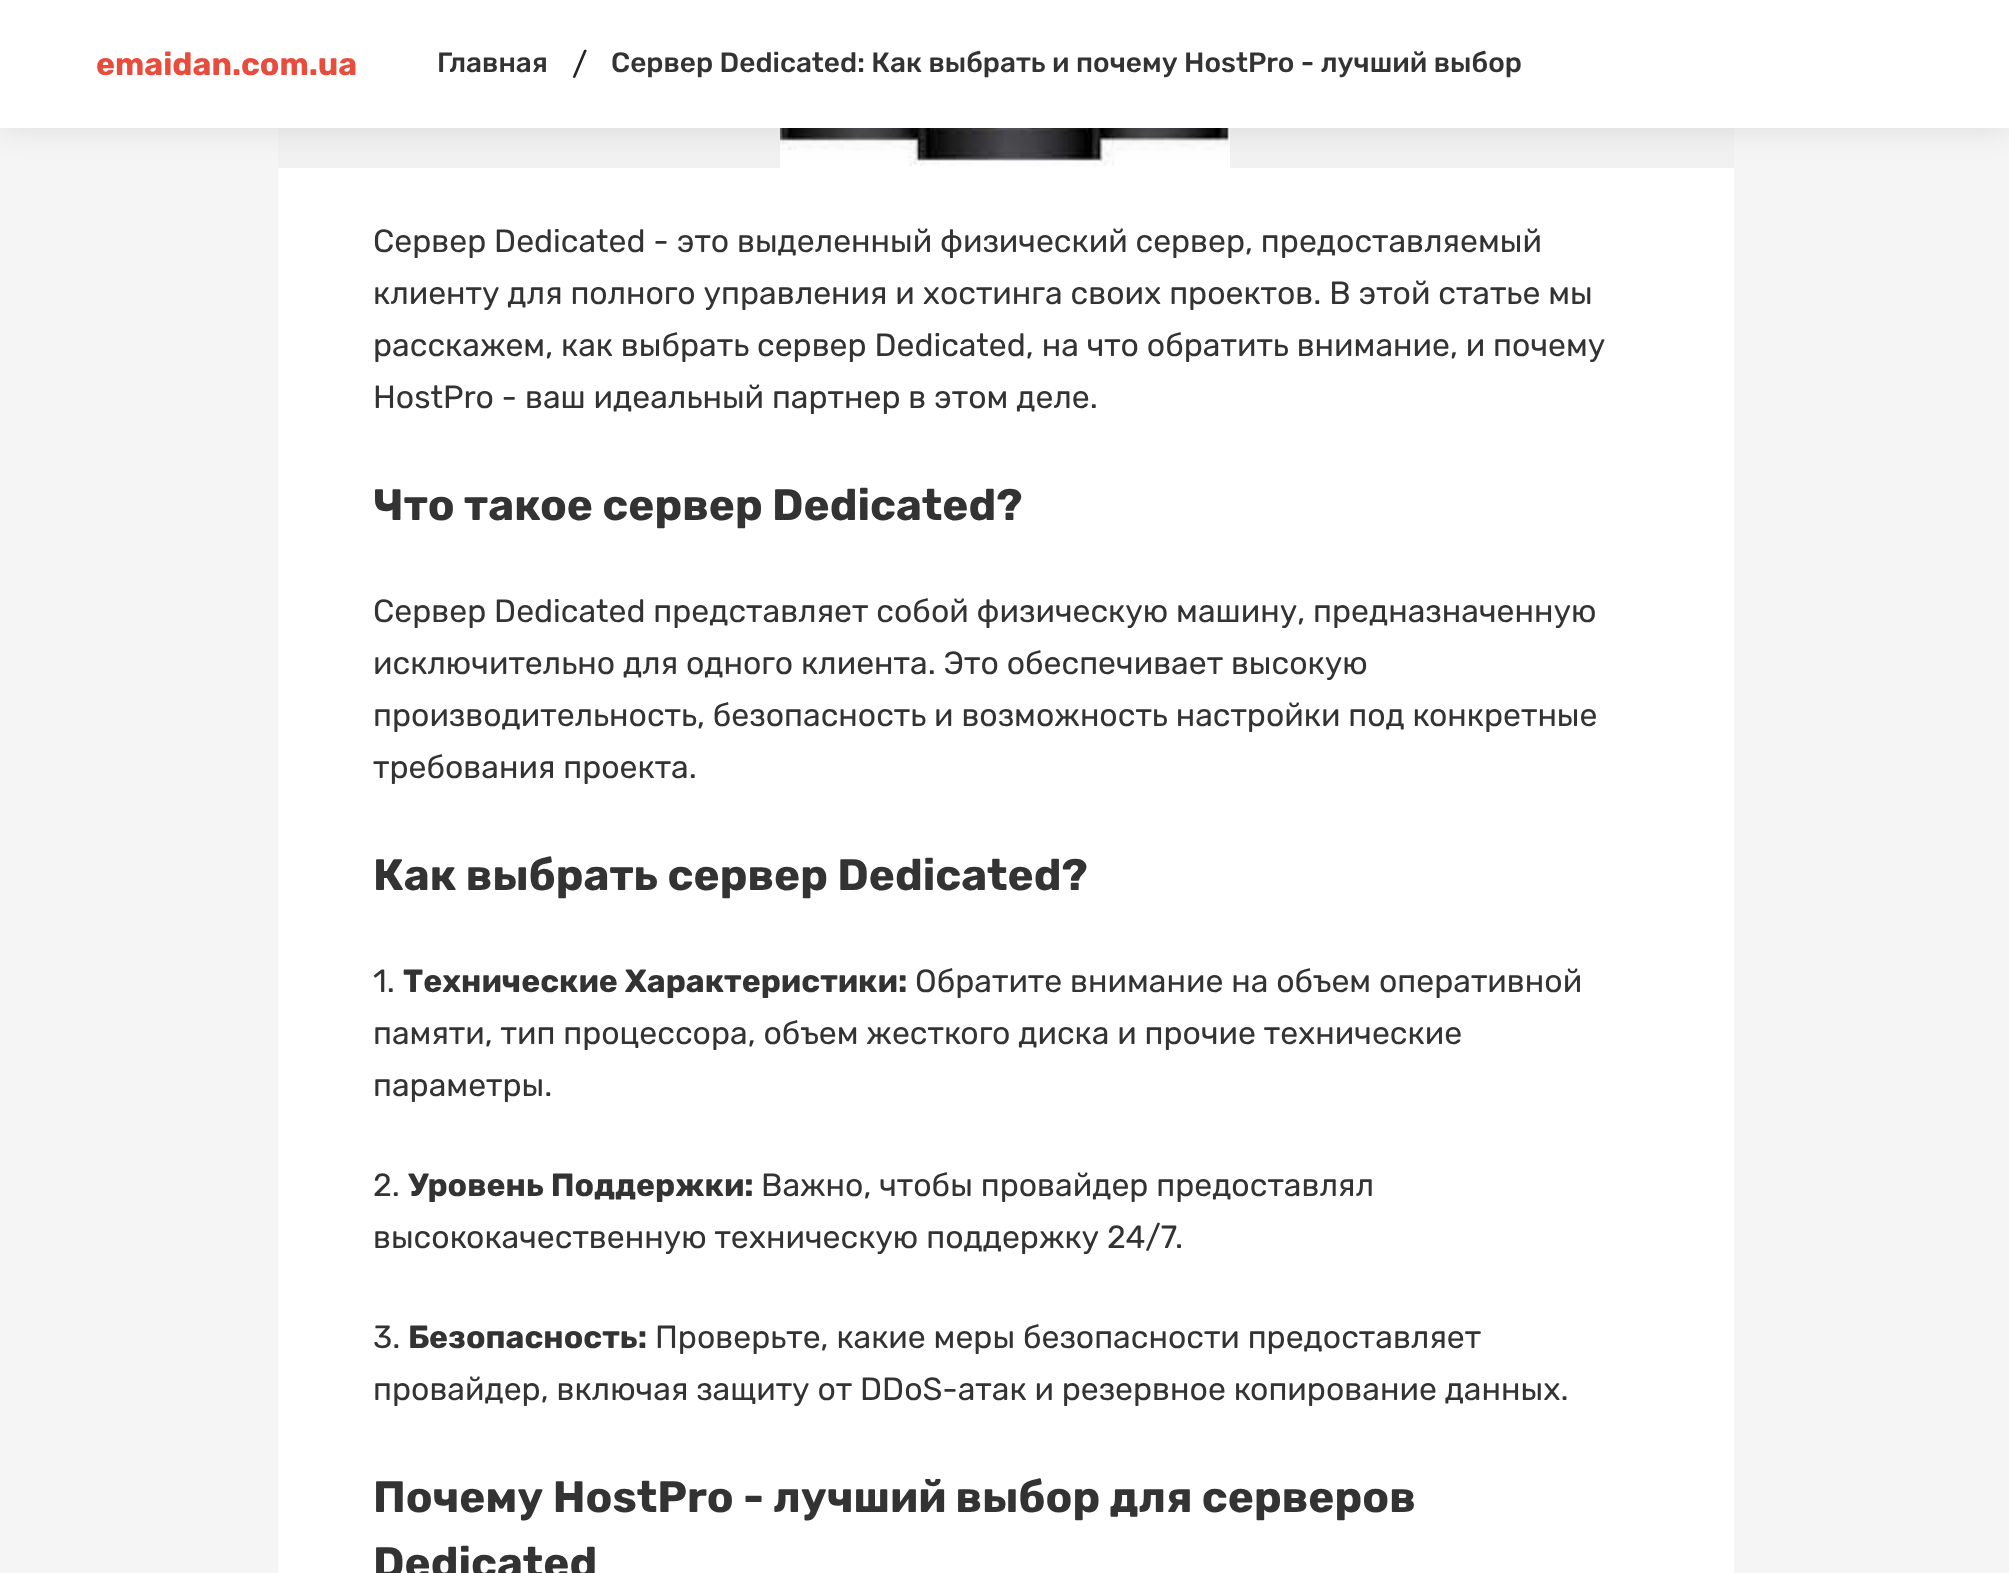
<!DOCTYPE html>
<meta charset="utf-8">
<style>body { margin: 0 } canvas { display: block }</style>
<canvas id="canvas" width="2009" height="1573"></canvas>
<script type="module">
  const canvas = document.getElementById("canvas");
  const g = canvas.getContext("2d");
  g.miterLimit = 4;
  g.fontKerning = "normal";
  function drawText(s, x, y, [font, color]) {
    g.font = font;
    g.fillStyle = color;
    g.fillText(s, x, y);
  }
  function fillBox(x, y, w, h, color) {
    g.fillStyle = color;
    g.fillRect(x, y, w, h);
  }
  async function drawPicture(src, x, y, w, h) {
    const img = new Image();
    img.src = src;
    await img.decode();
    g.drawImage(img, x, y, w, h);
  }

  const s1 = ["bold 32px Rubik", "#E84C3D"];
  const s2 = ["500 28px Rubik", "#333333"];
  const s3 = ["32px Rubik", "#222222"];
  const s4 = ["32px Rubik", "#333333"];
  const s5 = ["bold 44px Rubik", "#333333"];
  const s6 = ["bold 32px Rubik", "#333333"];

  fillBox(0, 0, 2009, 1573, "#F5F5F5");
  fillBox(278, 168, 1456, 1405, "#FFFFFF");
  fillBox(278, 128, 1456, 40, "#F1F1F1");
  await drawPicture("pic1.png", 780, 128, 450, 40);
  g.fillStyle = "rgba(0, 0, 0, 0.1)";
  g.filter = "blur(16px)";
  g.beginPath();
  g.rect(0, 0, 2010, 128);
  g.fill();
  g.filter = "none";
  fillBox(0, 0, 2009, 128, "#FFFFFF");
  drawText("emaidan.com.ua", 96, 75, s1);
  drawText("Главная", 437, 72, s2);
  drawText("/", 572, 75, s3);
  drawText("Сервер Dedicated: Как выбрать и почему HostPro - лучший выбор", 611, 72, s2);
  drawText("Сервер Dedicated - это выделенный физический сервер, предоставляемый", 373, 252, s4);
  drawText("клиенту для полного управления и хостинга своих проектов. В этой статье мы", 373, 304, s4);
  drawText("расскажем, как выбрать сервер Dedicated, на что обратить внимание, и почему", 373, 356, s4);
  drawText("HostPro - ваш идеальный партнер в этом деле.", 373, 408, s4);
  drawText("Что такое сервер Dedicated?", 373, 520, s5);
  drawText("Сервер Dedicated представляет собой физическую машину, предназначенную", 373, 622, s4);
  drawText("исключительно для одного клиента. Это обеспечивает высокую", 373, 674, s4);
  drawText("производительность, безопасность и возможность настройки под конкретные", 373, 726, s4);
  drawText("требования проекта.", 373, 778, s4);
  drawText("Как выбрать сервер Dedicated?", 373, 890, s5);
  drawText("1.", 373, 992, s4);
  drawText("Технические Характеристики:", 403, 992, s6);
  drawText("Обратите внимание на объем оперативной", 915, 992, s4);
  drawText("памяти, тип процессора, объем жесткого диска и прочие технические", 373, 1044, s4);
  drawText("параметры.", 373, 1096, s4);
  drawText("2.", 373, 1196, s4);
  drawText("Уровень Поддержки:", 408, 1196, s6);
  drawText("Важно, чтобы провайдер предоставлял", 761, 1196, s4);
  drawText("высококачественную техническую поддержку 24/7.", 373, 1248, s4);
  drawText("3.", 373, 1348, s4);
  drawText("Безопасность:", 408, 1348, s6);
  drawText("Проверьте, какие меры безопасности предоставляет", 655, 1348, s4);
  drawText("провайдер, включая защиту от DDoS-атак и резервное копирование данных.", 373, 1400, s4);
  drawText("Почему HostPro - лучший выбор для серверов", 373, 1512, s5);
  drawText("Dedicated", 373, 1578, s5);
</script>
